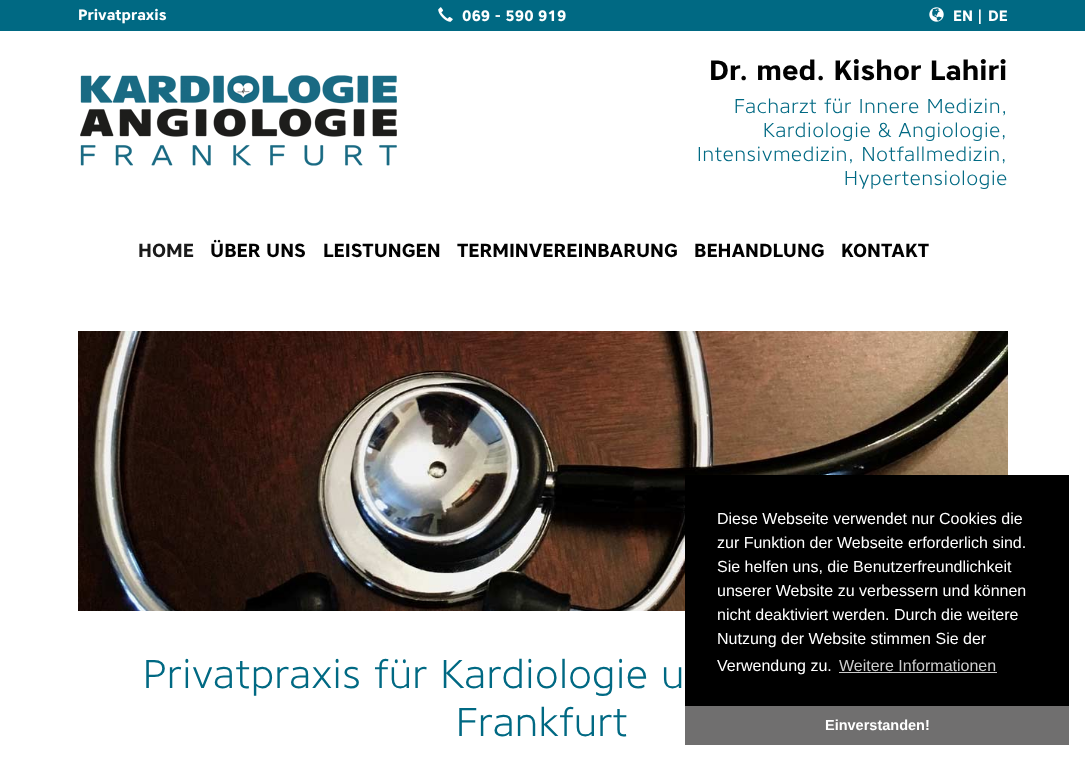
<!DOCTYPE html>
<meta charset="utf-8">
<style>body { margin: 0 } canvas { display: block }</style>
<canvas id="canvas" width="1085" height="761"></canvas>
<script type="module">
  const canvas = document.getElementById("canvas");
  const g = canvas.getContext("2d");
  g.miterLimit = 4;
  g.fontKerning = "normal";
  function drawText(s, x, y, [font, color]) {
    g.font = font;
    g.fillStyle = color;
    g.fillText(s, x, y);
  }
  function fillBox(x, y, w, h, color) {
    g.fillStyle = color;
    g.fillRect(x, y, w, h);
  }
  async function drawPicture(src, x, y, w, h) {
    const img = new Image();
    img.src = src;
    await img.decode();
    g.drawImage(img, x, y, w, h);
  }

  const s1 = ["15px 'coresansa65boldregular'", "#FFFFFF"];
  const s2 = ["28px 'coresansa65boldregular'", "#010101"];
  const s3 = ["300 20px 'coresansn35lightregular'", "#006983"];
  const s4 = ["18.9px 'coresansa65boldregular'", "#1A1A1A"];
  const s5 = ["18.9px 'coresansa65boldregular'", "#010101"];
  const s6 = ["300 40px 'coresansn35lightregular'", "#006983"];
  const s7 = ["16px Liberation Sans", "#FFFFFF"];
  const s8 = ["16px Liberation Sans", "#CCCCCC"];
  const s9 = ["bold 14.5px Liberation Sans", "#FFFFFF"];

  fillBox(0, 0, 1085, 761, "#FFFFFF");
  fillBox(0, 0, 1085, 31, "#006983");
  drawText("Privatpraxis", 78, 20, s1);
  await drawPicture("pic1.png", 438, 7, 15, 15);
  drawText("069 - 590 919", 462, 21, s1);
  await drawPicture("pic2.png", 929, 7, 15, 15);
  drawText("EN |", 953, 21, s1);
  drawText("DE", 988, 21, s1);
  await drawPicture("pic3.png", 80, 75, 317, 91);
  drawText("Dr. med. Kishor Lahiri", 709, 80, s2);
  g.letterSpacing = "0.8px";
  drawText("Facharzt für Innere Medizin,", 734, 113, s3);
  drawText("Kardiologie & Angiologie,", 763, 137, s3);
  drawText("Intensivmedizin, Notfallmedizin,", 697, 161, s3);
  drawText("Hypertensiologie", 844, 185, s3);
  g.letterSpacing = "0px";
  drawText("HOME", 138, 257, s4);
  drawText("ÜBER UNS", 210, 257, s5);
  drawText("LEISTUNGEN", 323, 257, s5);
  drawText("TERMINVEREINBARUNG", 457, 257, s5);
  drawText("BEHANDLUNG", 694, 257, s5);
  drawText("KONTAKT", 841, 257, s5);
  await drawPicture("pic4.png", 78, 331, 930, 280);
  g.letterSpacing = "0.8px";
  drawText("Privatpraxis für Kardiologie u", 143, 688, s6);
  drawText("Frankfurt", 456, 736, s6);
  fillBox(685, 475, 384, 231, "#000000");
  g.letterSpacing = "0px";
  drawText("Diese Webseite verwendet nur Cookies die", 717, 524, s7);
  drawText("zur Funktion der Webseite erforderlich sind.", 717, 548, s7);
  drawText("Sie helfen uns, die Benutzerfreundlichkeit", 717, 572, s7);
  drawText("unserer Website zu verbessern und können", 717, 596, s7);
  drawText("nicht deaktiviert werden. Durch die weitere", 717, 620, s7);
  drawText("Nutzung der Website stimmen Sie der", 717, 644, s7);
  drawText("Verwendung zu.", 717, 671, s7);
  drawText("Weitere Informationen", 839, 671, s8);
  fillBox(839, 672, 158, 1, "#CCCCCC");
  fillBox(685, 706, 384, 39, "#706F6F");
  drawText("Einverstanden!", 825, 730, s9);
</script>
